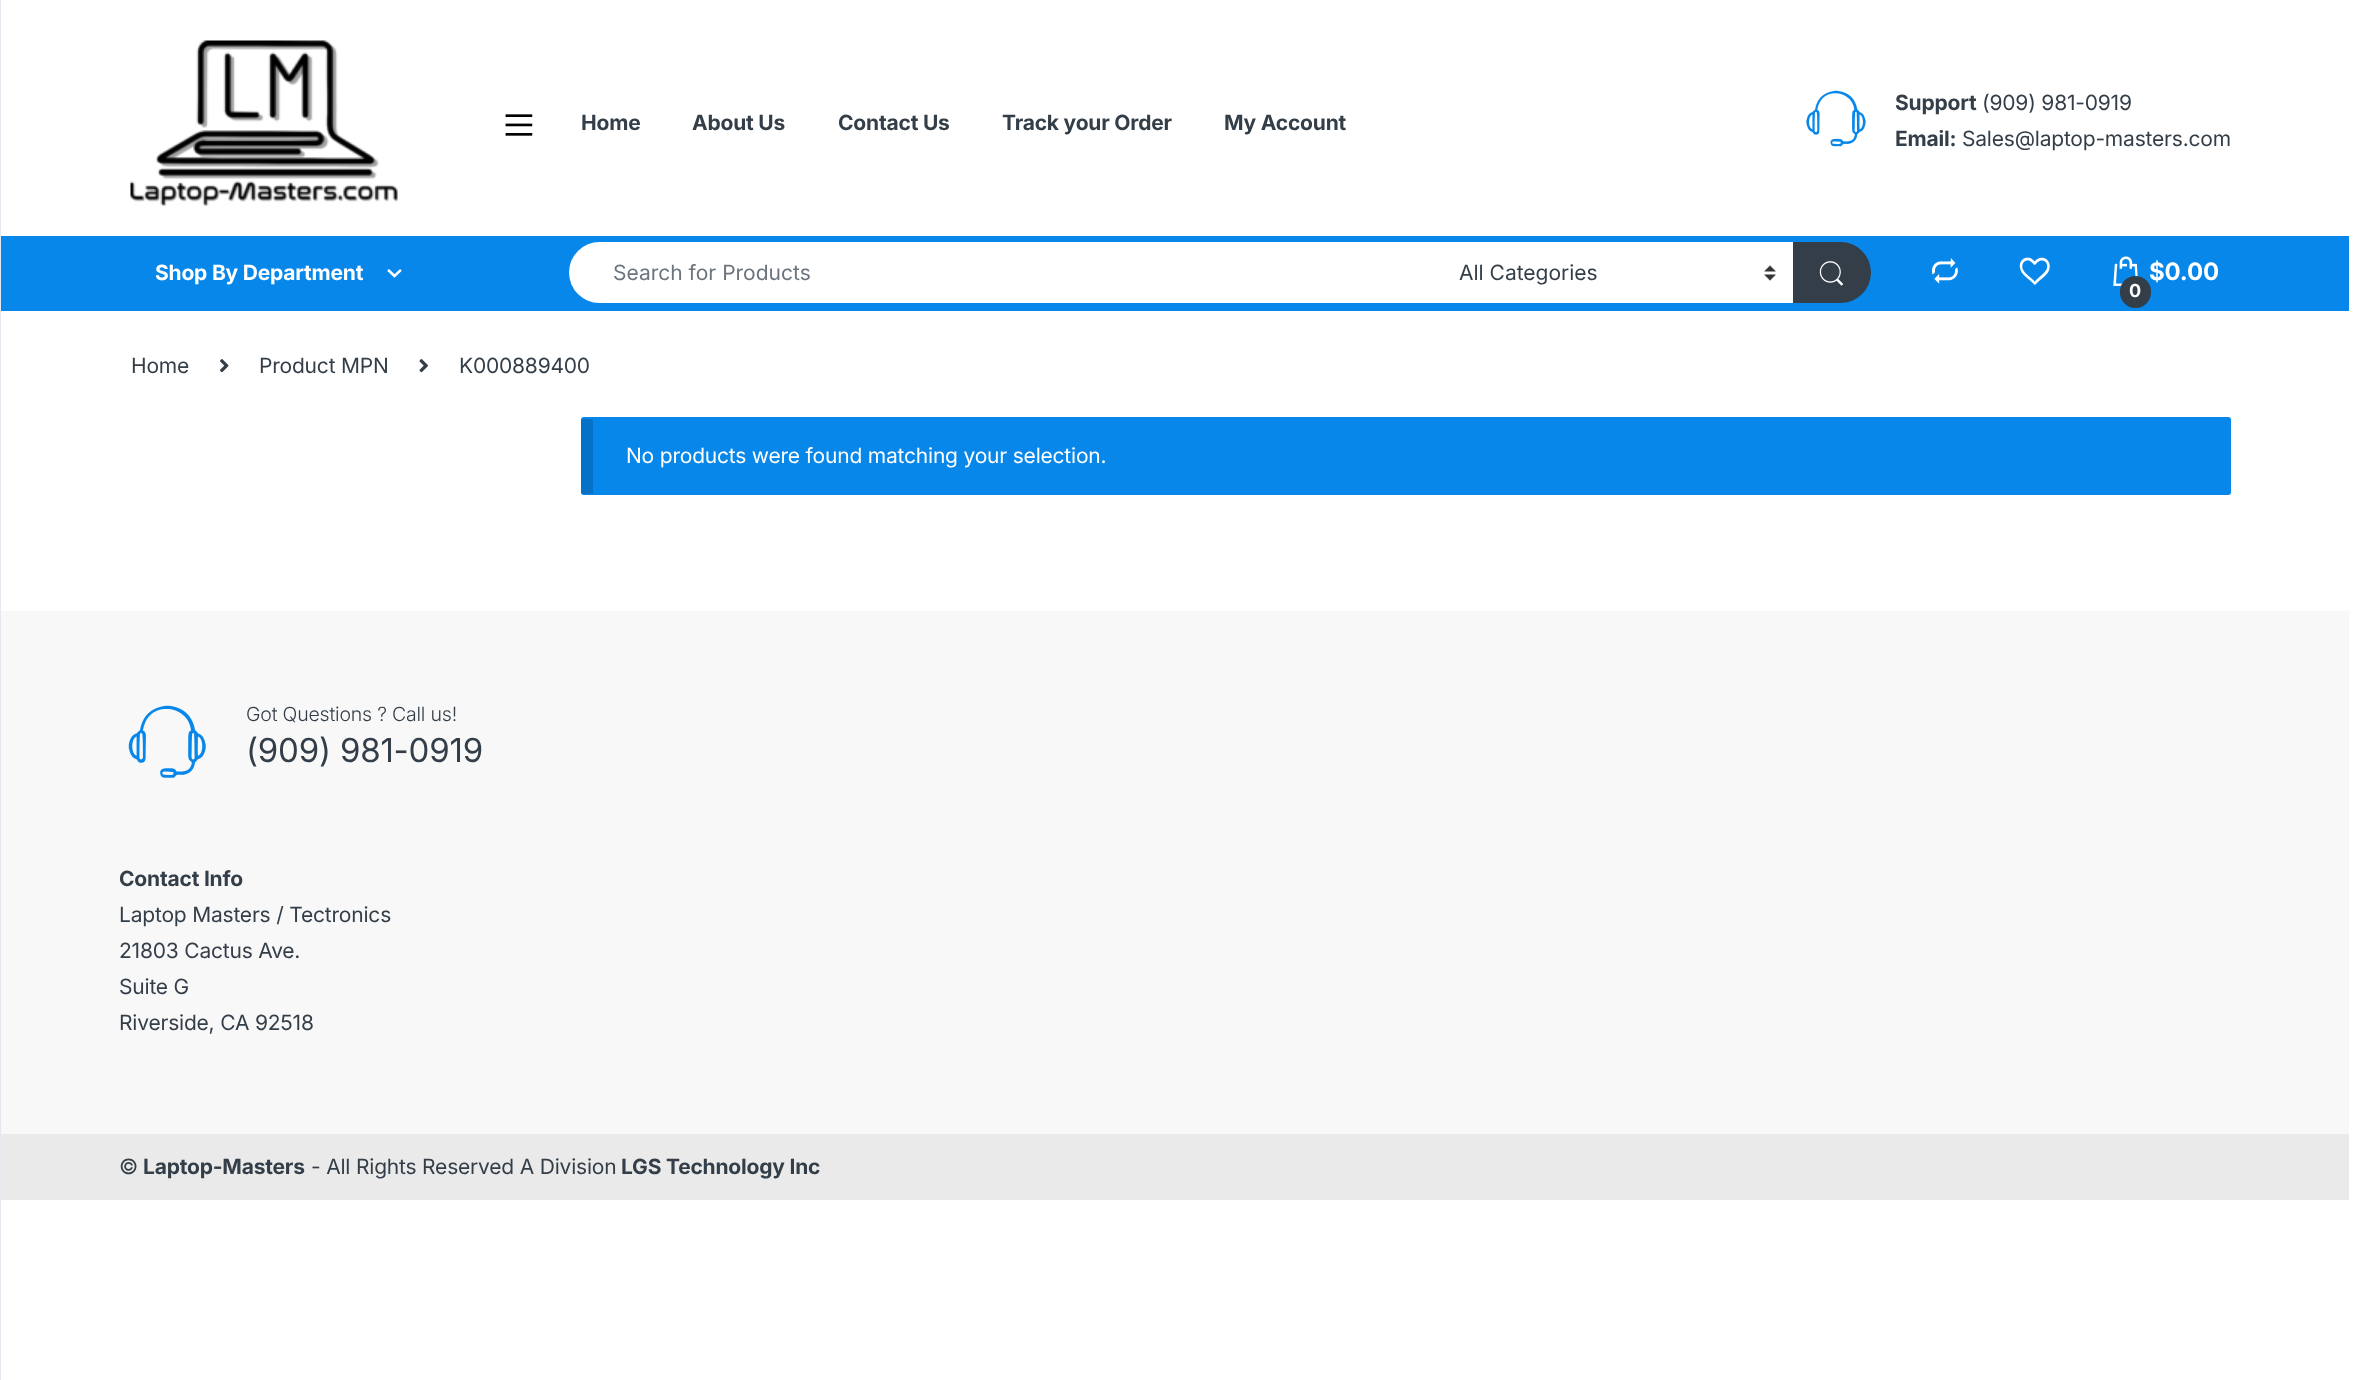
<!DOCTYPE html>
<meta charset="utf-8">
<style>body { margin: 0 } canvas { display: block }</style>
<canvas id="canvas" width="2360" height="1380"></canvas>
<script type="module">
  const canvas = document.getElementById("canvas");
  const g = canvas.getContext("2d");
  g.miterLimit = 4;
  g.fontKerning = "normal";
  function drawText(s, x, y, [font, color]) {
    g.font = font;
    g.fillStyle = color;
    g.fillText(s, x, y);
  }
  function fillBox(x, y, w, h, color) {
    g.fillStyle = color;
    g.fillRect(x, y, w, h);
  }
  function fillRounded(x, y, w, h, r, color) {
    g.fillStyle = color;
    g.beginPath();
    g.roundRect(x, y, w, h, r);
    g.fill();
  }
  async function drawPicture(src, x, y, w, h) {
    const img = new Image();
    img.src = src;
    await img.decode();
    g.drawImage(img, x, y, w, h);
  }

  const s1 = ["bold 21px Inter", "#333E48"];
  const s2 = ["21px Inter", "#333E48"];
  const s3 = ["bold 21px Inter", "#FFFFFF"];
  const s4 = ["21px Inter", "#6C757D"];
  const s5 = ["bold 24px Inter", "#FFFFFF"];
  const s6 = ["bold 18px Inter", "#FFFFFF"];
  const s7 = ["21px Inter", "#FFFFFF"];
  const s8 = ["300 19.5px Inter", "#333E48"];
  const s9 = ["33px Inter", "#333E48"];

  fillBox(0, 0, 2360, 1380, "#FFFFFF");
  fillBox(0, 0, 1, 1380, "#E3E9EF");
  await drawPicture("pic1.png", 505, 114, 28, 22);
  await drawPicture("pic2.png", 130, 40, 268, 166);
  g.letterSpacing = "-0.2px";
  drawText("Home", 581, 130, s1);
  drawText("About Us", 692, 130, s1);
  drawText("Contact Us", 838, 130, s1);
  drawText("Track your Order", 1002, 130, s1);
  drawText("My Account", 1224, 130, s1);
  await drawPicture("pic3.png", 1806, 90, 60, 57);
  drawText("Support", 1895, 110, s1);
  drawText("(909) 981-0919", 1982, 110, s2);
  drawText("Email:", 1895, 146, s1);
  drawText("Sales@laptop-masters.com", 1962, 146, s2);
  fillBox(1, 236, 2348, 75, "#0787EA");
  drawText("Shop By Department", 155, 280, s3);
  await drawPicture("pic4.png", 387, 269, 15, 9);
  g.beginPath();
  g.roundRect(569, 242, 874, 61, [30.5, 0, 0, 30.5]);
  g.fill();
  g.letterSpacing = "0px";
  drawText("Search for Products", 613, 280, s4);
  fillBox(1443, 242, 350, 61, "#FFFFFF");
  await drawPicture("pic5.png", 1764, 265, 12, 16);
  drawText("All Categories", 1459, 280, s2);
  g.beginPath();
  g.roundRect(1793, 242, 78, 61, [0, 30.5, 30.5, 0]);
  g.fill();
  await drawPicture("pic6.png", 1819, 261, 25, 25);
  await drawPicture("pic7.png", 1931, 258, 27, 26);
  await drawPicture("pic8.png", 2019, 257, 31, 28);
  await drawPicture("pic9.png", 2113, 256, 25, 30);
  g.letterSpacing = "-0.2px";
  drawText("$0.00", 2149, 280, s5);
  fillRounded(2120, 276, 31, 32, 15.5, "#333E48");
  drawText("0", 2129, 297, s6);
  drawText("Home", 131, 373, s2);
  await drawPicture("pic10.png", 220, 359, 9, 14);
  drawText("Product MPN", 259, 373, s2);
  await drawPicture("pic11.png", 419, 359, 9, 14);
  drawText("K000889400", 459, 373, s2);
  fillRounded(581, 417, 1650, 78, 3, "#0787EA");
  fillBox(581, 419, 12, 75, "rgba(0, 0, 0, 0.15)");
  drawText("No products were found matching your selection.", 626, 463, s7);
  fillBox(1, 611, 2348, 523, "#F8F8F8");
  await drawPicture("pic12.png", 128, 705, 78, 73);
  drawText("Got Questions ? Call us!", 246, 721, s8);
  drawText("(909) 981-0919", 246, 762, s9);
  drawText("Contact Info", 119, 886, s1);
  drawText("Laptop Masters / Tectronics", 119, 922, s2);
  drawText("21803 Cactus Ave.", 119, 958, s2);
  drawText("Suite G", 119, 994, s2);
  drawText("Riverside, CA 92518", 119, 1030, s2);
  fillBox(1, 1134, 2348, 66, "#EAEAEA");
  drawText("©", 119, 1174, s2);
  drawText("Laptop-Masters", 143, 1174, s1);
  drawText("- All Rights Reserved A Division", 311, 1174, s2);
  drawText("LGS Technology Inc", 621, 1174, s1);
</script>
